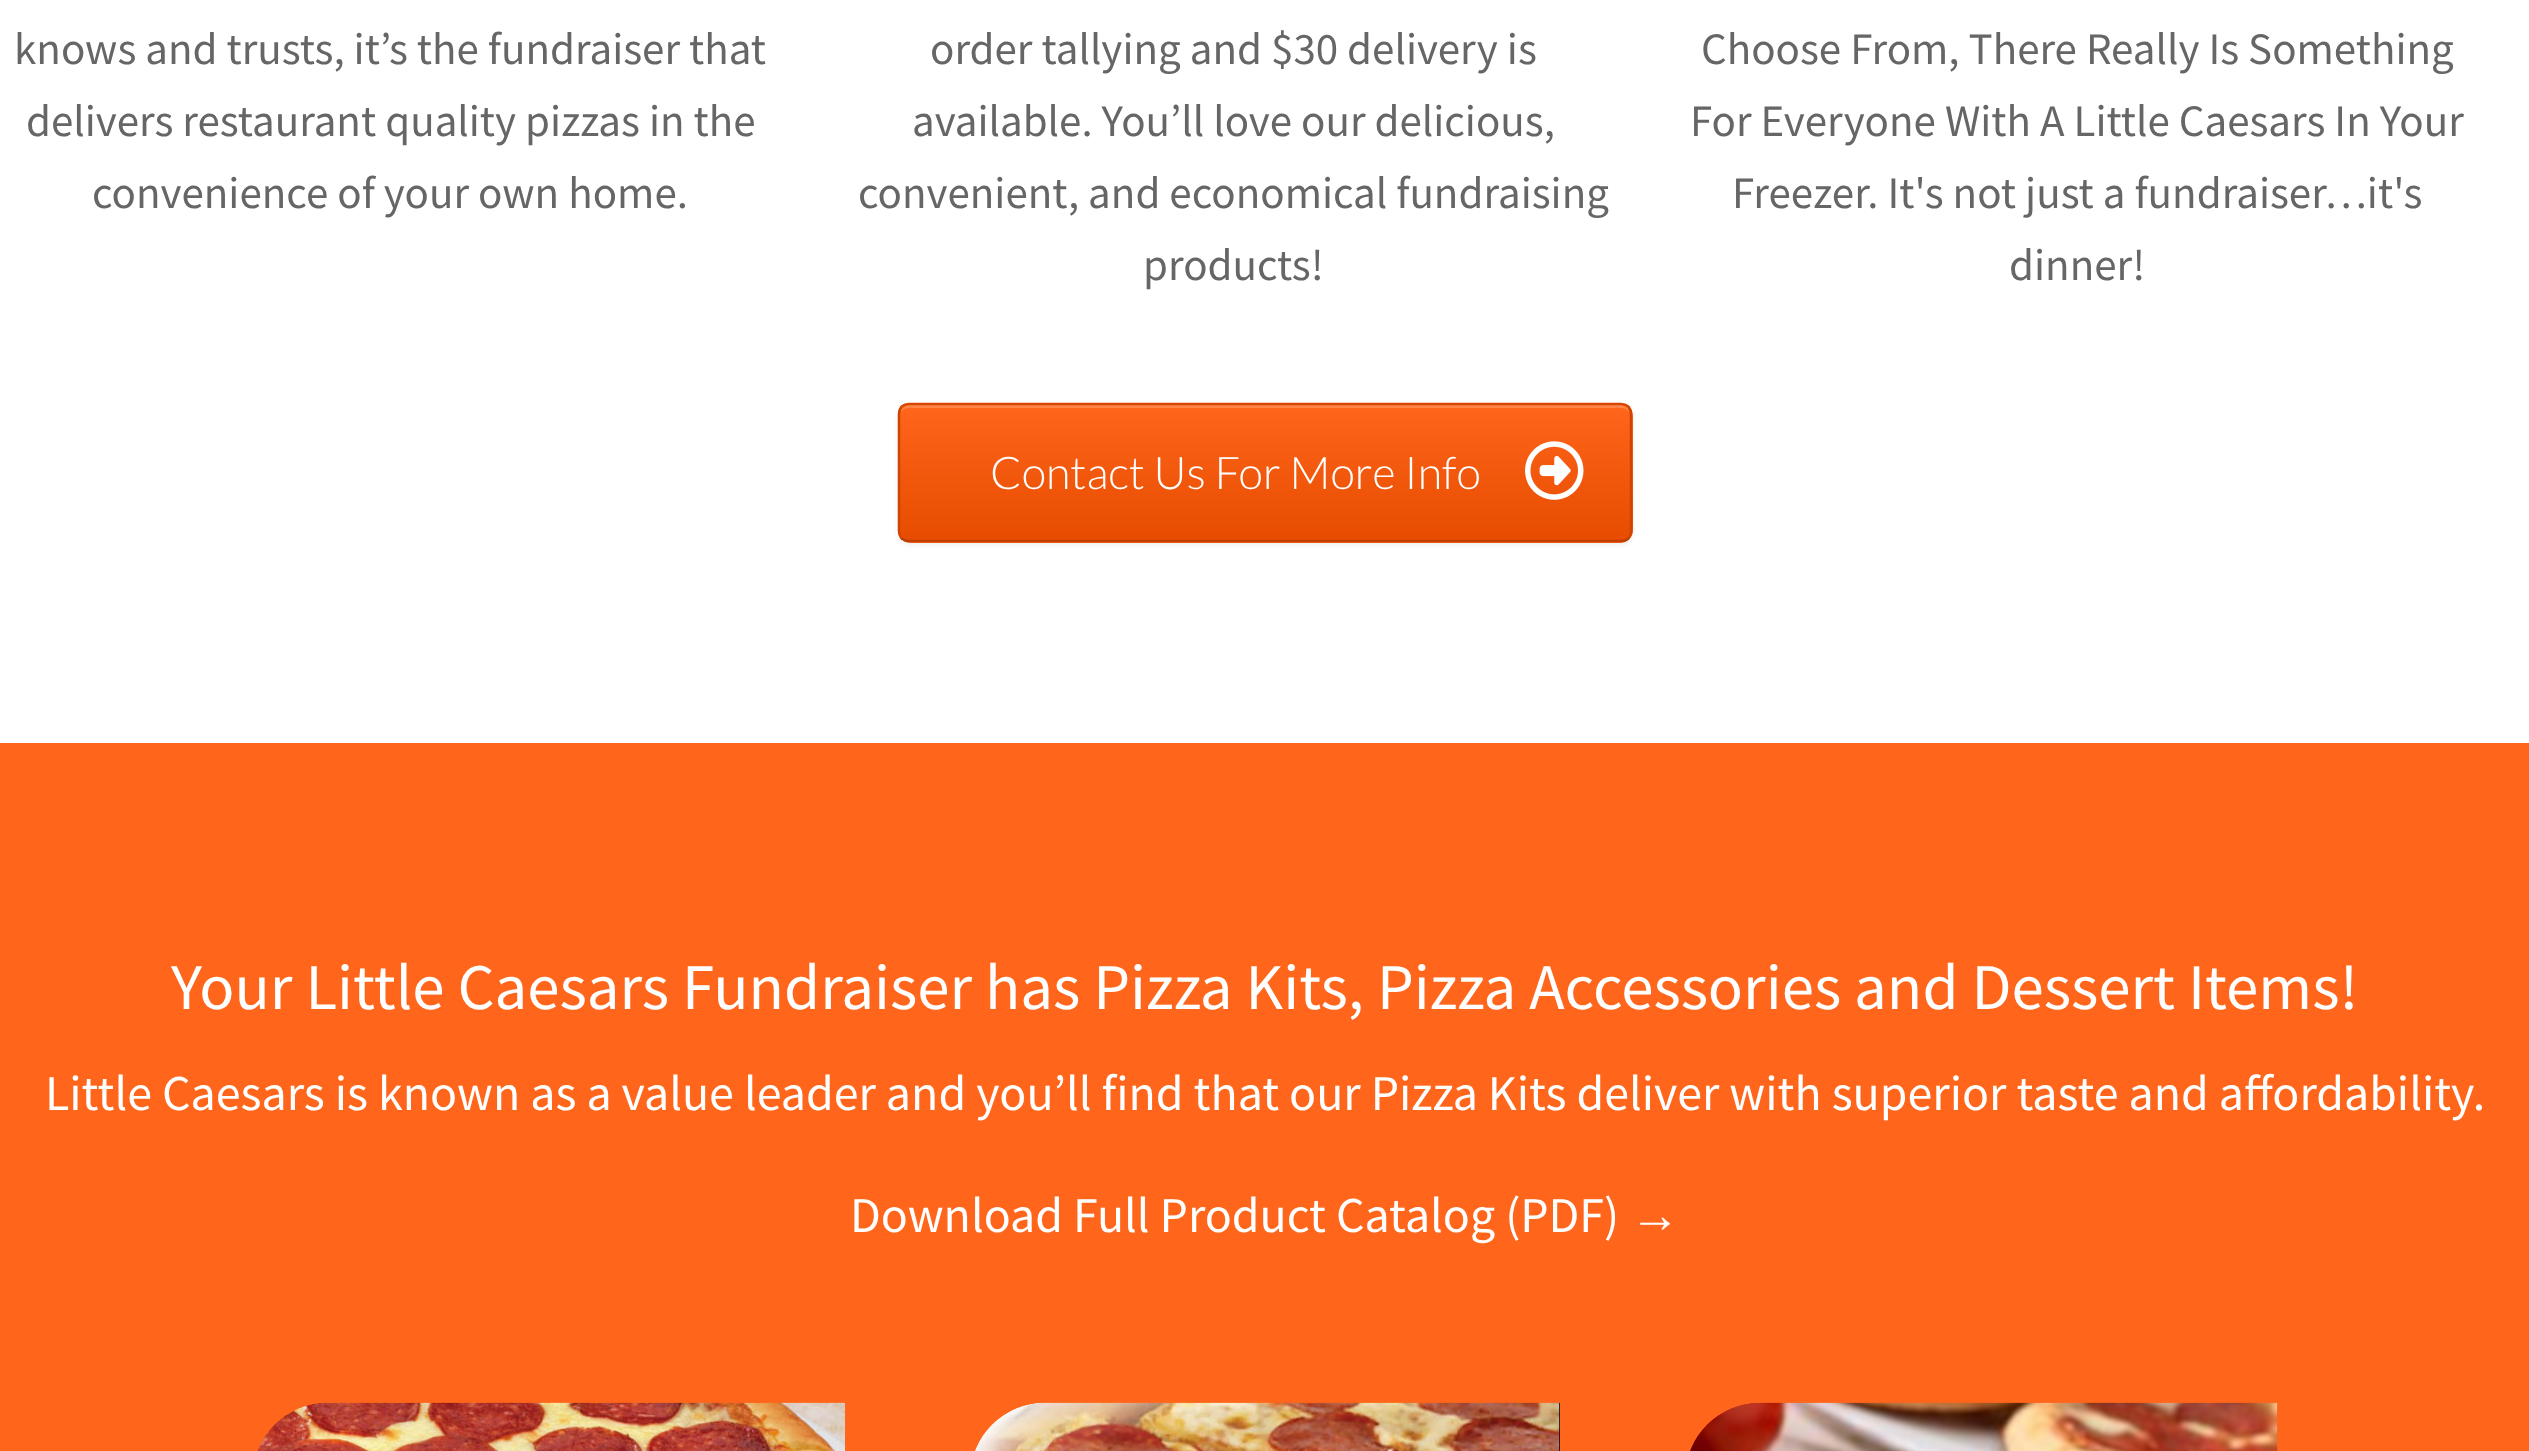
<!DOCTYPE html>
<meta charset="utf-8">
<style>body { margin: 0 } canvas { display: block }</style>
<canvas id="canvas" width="2529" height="1451"></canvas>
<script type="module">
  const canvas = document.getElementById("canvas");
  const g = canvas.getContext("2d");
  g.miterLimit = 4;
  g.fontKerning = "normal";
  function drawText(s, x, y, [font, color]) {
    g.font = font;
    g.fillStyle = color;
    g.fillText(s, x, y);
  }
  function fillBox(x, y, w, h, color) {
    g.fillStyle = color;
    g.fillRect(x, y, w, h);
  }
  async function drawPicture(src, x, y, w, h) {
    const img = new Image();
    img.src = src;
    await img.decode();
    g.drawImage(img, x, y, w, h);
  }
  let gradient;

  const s1 = ["45px Source Sans Pro", "#666666"];
  const s2 = ["300 45px Lato", "#FFFFFF"];
  const s3 = ["65px Source Sans Pro", "#FFFFFF"];
  const s4 = ["50px Source Sans Pro", "#FFFFFF"];
  const s5 = ["50px Liberation Sans", "#FFFFFF"];

  fillBox(0, 0, 2529, 1451, "#FFFFFF");
  drawText("knows and trusts, it’s the fundraiser that", 14, 64, s1);
  drawText("delivers restaurant quality pizzas in the", 26, 136, s1);
  drawText("convenience of your own home.", 92, 208, s1);
  drawText("order tallying and $30 delivery is", 930, 64, s1);
  drawText("available. You’ll love our delicious,", 912, 136, s1);
  drawText("convenient, and economical fundraising", 858, 208, s1);
  drawText("products!", 1143, 280, s1);
  drawText("Choose From, There Really Is Something", 1701, 64, s1);
  drawText("For Everyone With A Little Caesars In Your", 1690, 136, s1);
  drawText("Freezer. It's not just a fundraiser…it's", 1732, 208, s1);
  drawText("dinner!", 2009, 280, s1);
  g.fillStyle = "rgba(0, 0, 0, 0.07)";
  g.filter = "blur(2.5px)";
  g.beginPath();
  g.roundRect(898, 405, 735, 140, 13);
  g.fill();
  g.filter = "none";
  g.save();
  g.beginPath();
  g.roundRect(898, 403, 735, 140, 13);
  g.clip();
  gradient = g.createLinearGradient(900, 540, 900, 405);
  gradient.addColorStop(0, "#E74C00");
  gradient.addColorStop(1, "#FF661B");
  g.fillStyle = gradient;
  g.fillRect(898, 405, 735, 135);
  gradient = g.createLinearGradient(900, 675, 900, 540);
  gradient.addColorStop(0, "#E74C00");
  gradient.addColorStop(1, "#FF661B");
  g.fillStyle = gradient;
  g.fillRect(898, 540, 735, 3);
  g.restore();
  g.fillStyle = "#FF8548";
  g.beginPath();
  g.moveTo(909, 408);
  g.lineTo(1621, 408);
  g.bezierCurveTo(1626, 408, 1630, 411, 1630, 416);
  g.bezierCurveTo(1630, 410, 1626, 405, 1620, 405);
  g.lineTo(910, 405);
  g.bezierCurveTo(904, 405, 900, 410, 900, 416);
  g.bezierCurveTo(900, 411, 904, 408, 909, 408);
  g.closePath();
  g.fill();
  g.beginPath();
  g.moveTo(901.5, 406.5);
  g.bezierCurveTo(903.5, 405, 906, 404, 909, 404);
  g.lineTo(1621, 404);
  g.bezierCurveTo(1624, 404, 1626.5, 405, 1628.5, 406.5);
  g.strokeStyle = "#D84700";
  g.lineWidth = 2.5;
  g.stroke();
  g.beginPath();
  g.moveTo(1628.5, 406.5);
  g.bezierCurveTo(1630, 408.5, 1631, 411, 1631, 414);
  g.lineTo(1631, 531);
  g.bezierCurveTo(1631, 534, 1630, 536.5, 1628.5, 538.5);
  g.strokeStyle = "#CE4400";
  g.stroke();
  g.beginPath();
  g.moveTo(1628.5, 538.5);
  g.bezierCurveTo(1626.5, 540, 1624, 541, 1621, 541);
  g.lineTo(909, 541);
  g.bezierCurveTo(906, 541, 903.5, 540, 901.5, 538.5);
  g.strokeStyle = "#BE3F00";
  g.stroke();
  g.beginPath();
  g.moveTo(901.5, 538.5);
  g.bezierCurveTo(900, 536.5, 899, 534, 899, 531);
  g.lineTo(899, 414);
  g.bezierCurveTo(899, 411, 900, 408.5, 901.5, 406.5);
  g.strokeStyle = "#CE4400";
  g.stroke();
  drawText("Contact Us For More Info", 990, 489, s2);
  await drawPicture("pic1.png", 1525, 441, 59, 59);
  fillBox(0, 743, 2529, 708, "#FF661B");
  drawText("Your Little Caesars Fundraiser has Pizza Kits, Pizza Accessories and Dessert Items!", 171, 1009, s3);
  drawText("Little Caesars is known as a value leader and you’ll find that our Pizza Kits deliver with superior taste and affordability.", 45, 1110, s4);
  drawText("Download Full Product Catalog (PDF)", 850, 1232, s4);
  drawText("→", 1630, 1232, s5);
  await drawPicture("pic2.png", 257, 1402, 588, 49);
  await drawPicture("pic3.png", 975, 1402, 585, 49);
  await drawPicture("pic4.png", 1690, 1402, 588, 49);
</script>
